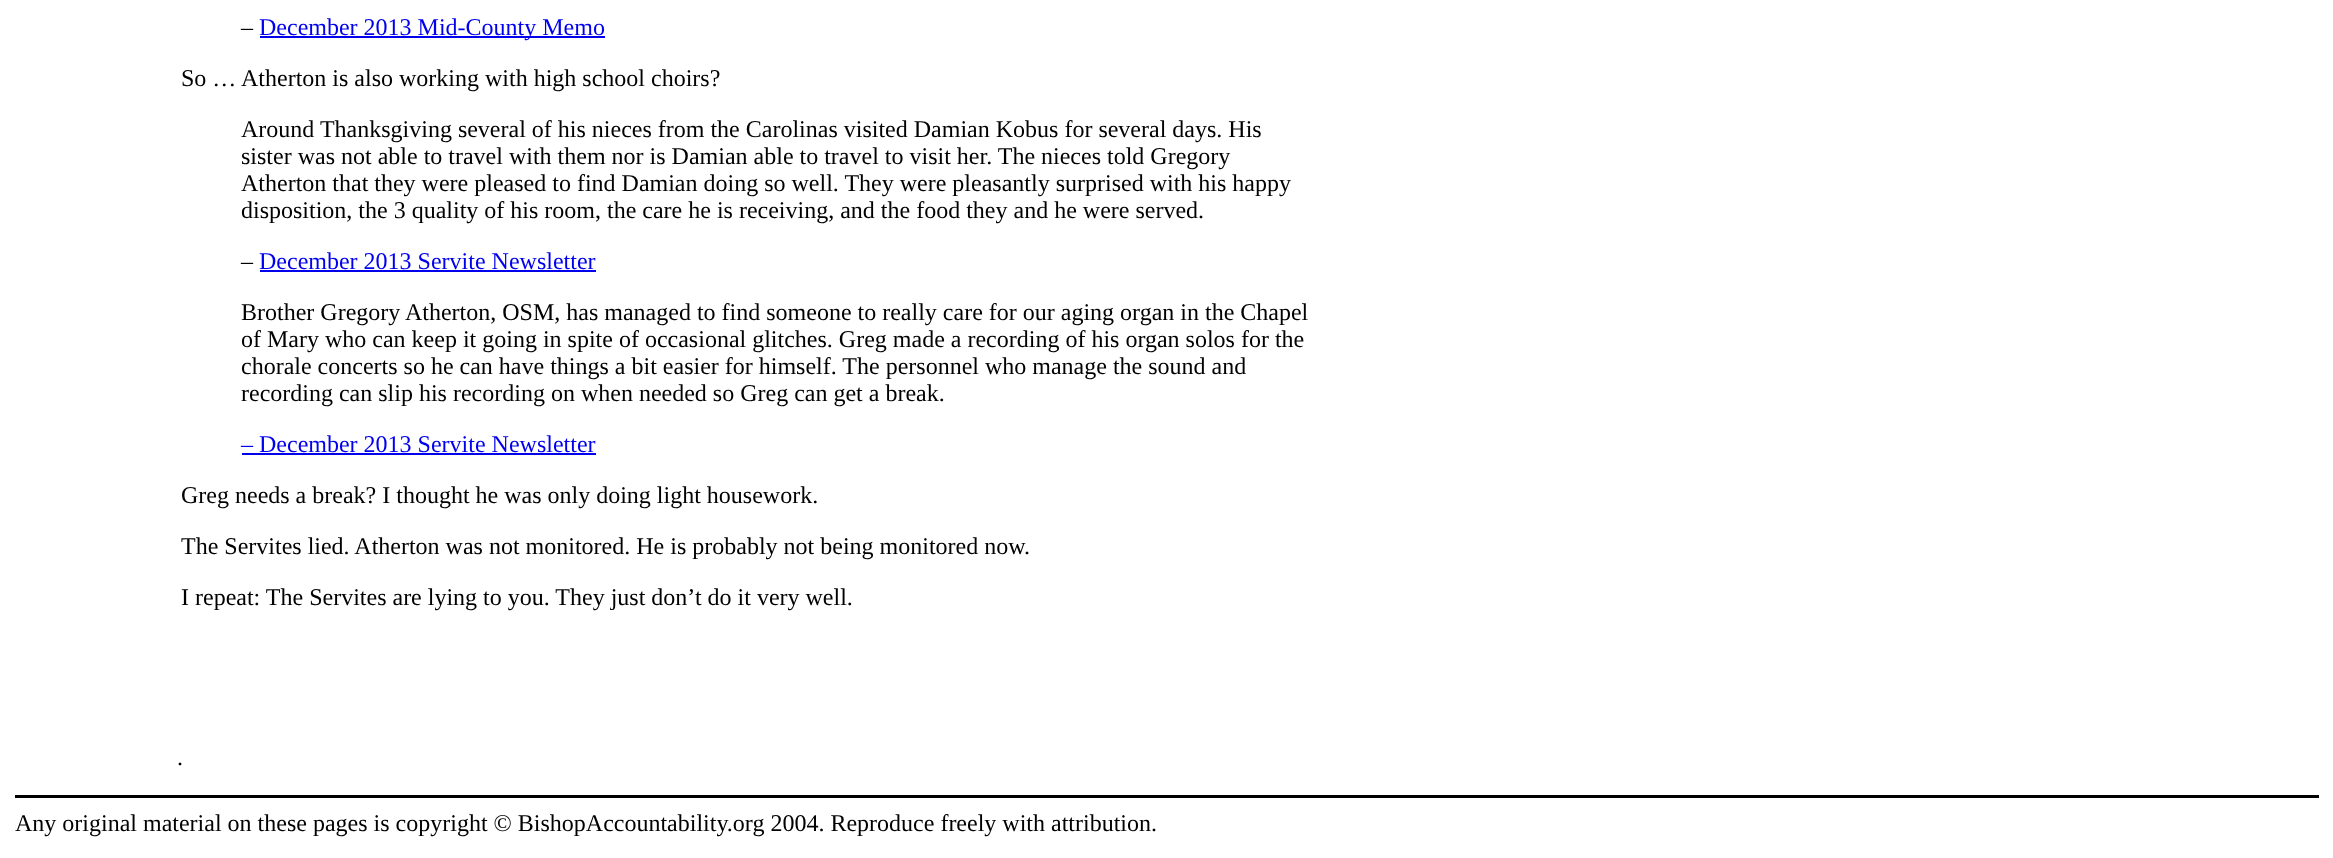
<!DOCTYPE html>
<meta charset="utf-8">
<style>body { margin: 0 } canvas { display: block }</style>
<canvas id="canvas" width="2333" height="858"></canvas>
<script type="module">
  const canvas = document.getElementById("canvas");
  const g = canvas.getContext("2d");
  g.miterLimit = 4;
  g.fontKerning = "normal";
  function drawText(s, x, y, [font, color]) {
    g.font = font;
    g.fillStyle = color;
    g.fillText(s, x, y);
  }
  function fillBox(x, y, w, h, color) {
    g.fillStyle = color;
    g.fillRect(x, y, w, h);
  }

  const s1 = ["24px Liberation Serif", "#000000"];
  const s2 = ["24px Liberation Serif", "#0000EE"];

  fillBox(0, 0, 2333, 858, "#FFFFFF");
  drawText("–", 241, 35, s1);
  fillBox(260, 36, 345, 2, "#0000EE");
  drawText("December 2013 Mid-County Memo", 259, 35, s2);
  drawText("So … Atherton is also working with high school choirs?", 181, 86, s1);
  drawText("Around Thanksgiving several of his nieces from the Carolinas visited Damian Kobus for several days. His", 241, 137, s1);
  drawText("sister was not able to travel with them nor is Damian able to travel to visit her. The nieces told Gregory", 241, 164, s1);
  drawText("Atherton that they were pleased to find Damian doing so well. They were pleasantly surprised with his happy", 241, 191, s1);
  drawText("disposition, the 3 quality of his room, the care he is receiving, and the food they and he were served.", 241, 218, s1);
  drawText("–", 241, 269, s1);
  drawText("December 2013 Servite Newsletter", 259, 269, s2);
  fillBox(260, 270, 336, 2, "#0000EE");
  drawText("Brother Gregory Atherton, OSM, has managed to find someone to really care for our aging organ in the Chapel", 241, 320, s1);
  drawText("of Mary who can keep it going in spite of occasional glitches. Greg made a recording of his organ solos for the", 241, 347, s1);
  drawText("chorale concerts so he can have things a bit easier for himself. The personnel who manage the sound and", 241, 374, s1);
  drawText("recording can slip his recording on when needed so Greg can get a break.", 241, 401, s1);
  drawText("– December 2013 Servite Newsletter", 241, 452, s2);
  fillBox(242, 453, 354, 2, "#0000EE");
  drawText("Greg needs a break? I thought he was only doing light housework.", 181, 503, s1);
  drawText("The Servites lied. Atherton was not monitored. He is probably not being monitored now.", 181, 554, s1);
  drawText("I repeat: The Servites are lying to you. They just don’t do it very well.", 181, 605, s1);
  drawText(".", 177, 765, s1);
  fillBox(15, 795, 2304, 3, "#000000");
  drawText("Any original material on these pages is copyright © BishopAccountability.org 2004. Reproduce freely with attribution.", 15, 831, s1);
</script>
